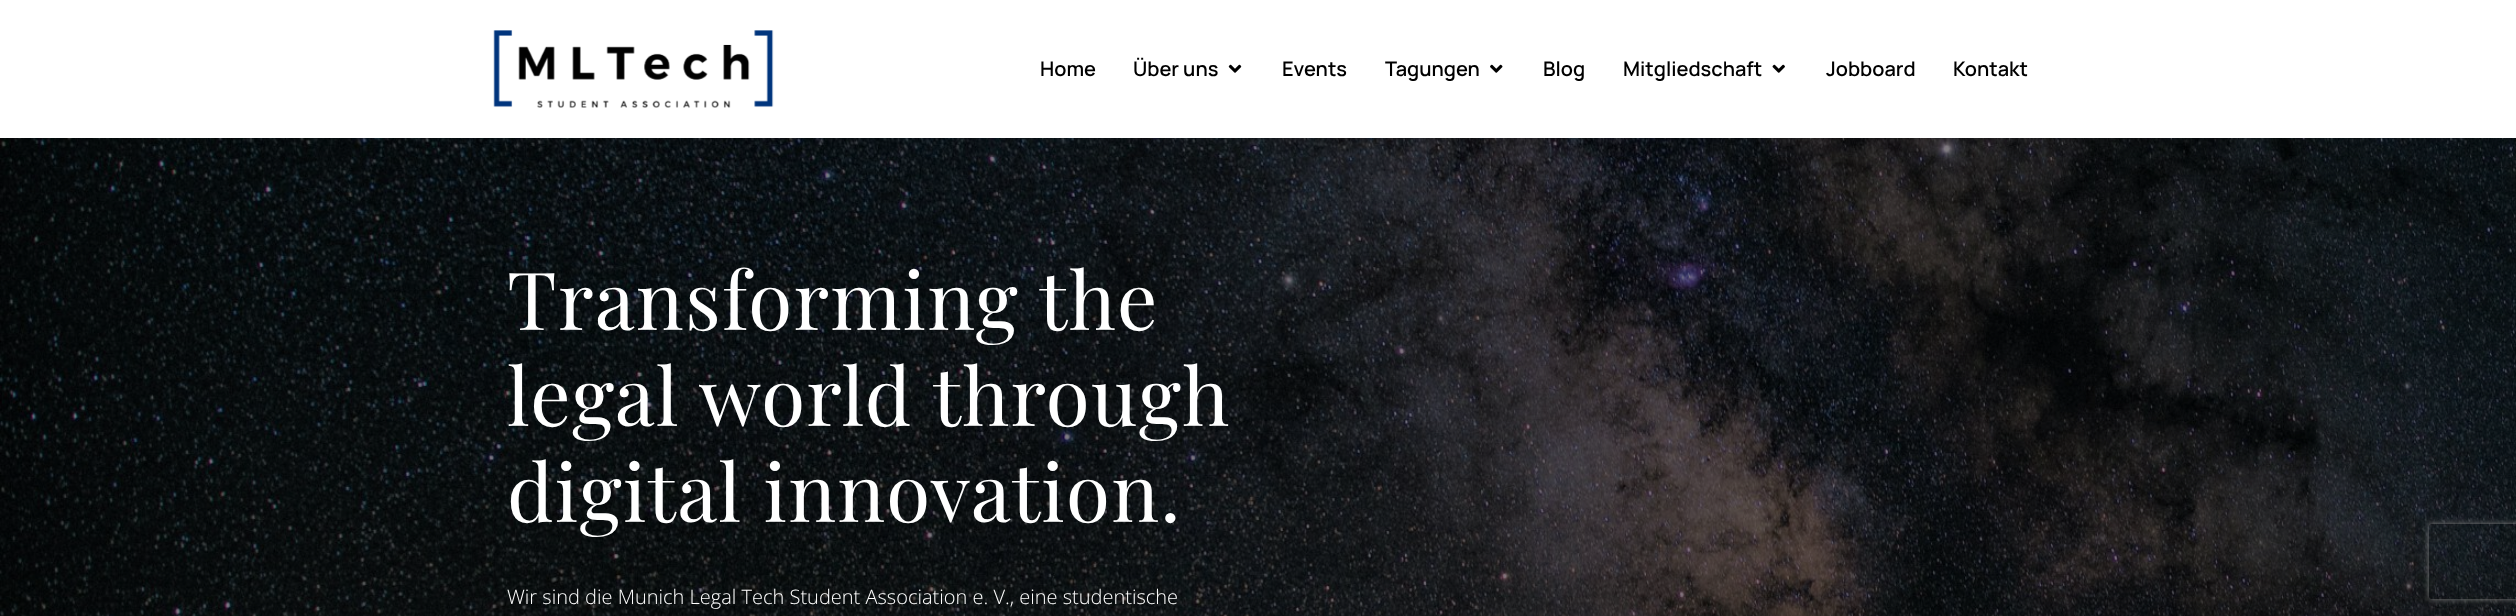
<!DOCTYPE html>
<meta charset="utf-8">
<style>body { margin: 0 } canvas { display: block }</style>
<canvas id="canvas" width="2516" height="616"></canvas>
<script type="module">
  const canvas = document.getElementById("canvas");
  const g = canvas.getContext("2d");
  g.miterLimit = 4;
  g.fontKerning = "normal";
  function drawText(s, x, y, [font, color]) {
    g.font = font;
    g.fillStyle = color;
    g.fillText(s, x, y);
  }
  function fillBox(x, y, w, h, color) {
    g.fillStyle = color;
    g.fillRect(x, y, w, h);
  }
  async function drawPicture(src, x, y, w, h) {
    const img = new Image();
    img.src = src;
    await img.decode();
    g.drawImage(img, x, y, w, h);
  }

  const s1 = ["600 20px Manrope", "#000000"];
  const s2 = ["80px Playfair Display", "#FFFFFF"];
  const s3 = ["300 20px Open Sans", "#FFFFFF"];

  fillBox(0, 0, 2516, 616, "#FFFFFF");
  await drawPicture("pic1.png", 493, 30, 281, 78);
  drawText("Home", 1040, 76, s1);
  drawText("Über uns", 1133, 76, s1);
  await drawPicture("pic2.png", 1228, 64, 14, 9);
  drawText("Events", 1282, 76, s1);
  drawText("Tagungen", 1385, 76, s1);
  await drawPicture("pic3.png", 1490, 64, 13, 9);
  drawText("Blog", 1543, 76, s1);
  drawText("Mitgliedschaft", 1623, 76, s1);
  await drawPicture("pic4.png", 1772, 64, 13, 9);
  drawText("Jobboard", 1826, 76, s1);
  drawText("Kontakt", 1953, 76, s1);
  await drawPicture("pic5.png", 0, 138, 2516, 478);
  g.letterSpacing = "1.25px";
  drawText("Transforming the", 507, 330, s2);
  drawText("legal world through", 507, 426, s2);
  drawText("digital innovation.", 507, 522, s2);
  g.letterSpacing = "0px";
  drawText("Wir sind die Munich Legal Tech Student Association e. V., eine studentische", 507, 604, s3);
  g.save();
  g.beginPath();
  g.moveTo(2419, 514);
  g.lineTo(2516, 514);
  g.lineTo(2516, 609);
  g.lineTo(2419, 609);
  g.closePath();
  g.moveTo(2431.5, 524);
  g.lineTo(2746.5, 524);
  g.bezierCurveTo(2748, 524, 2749, 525, 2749, 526.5);
  g.lineTo(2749, 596.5);
  g.bezierCurveTo(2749, 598, 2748, 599, 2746.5, 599);
  g.lineTo(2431.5, 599);
  g.bezierCurveTo(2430, 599, 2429, 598, 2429, 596.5);
  g.lineTo(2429, 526.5);
  g.bezierCurveTo(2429, 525, 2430, 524, 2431.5, 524);
  g.closePath();
  g.clip("evenodd");
  g.fillStyle = "#808080";
  g.filter = "blur(3px)";
  g.beginPath();
  g.roundRect(2429, 524, 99, 75, 2.5);
  g.fill();
  g.filter = "none";
  g.restore();
</script>
